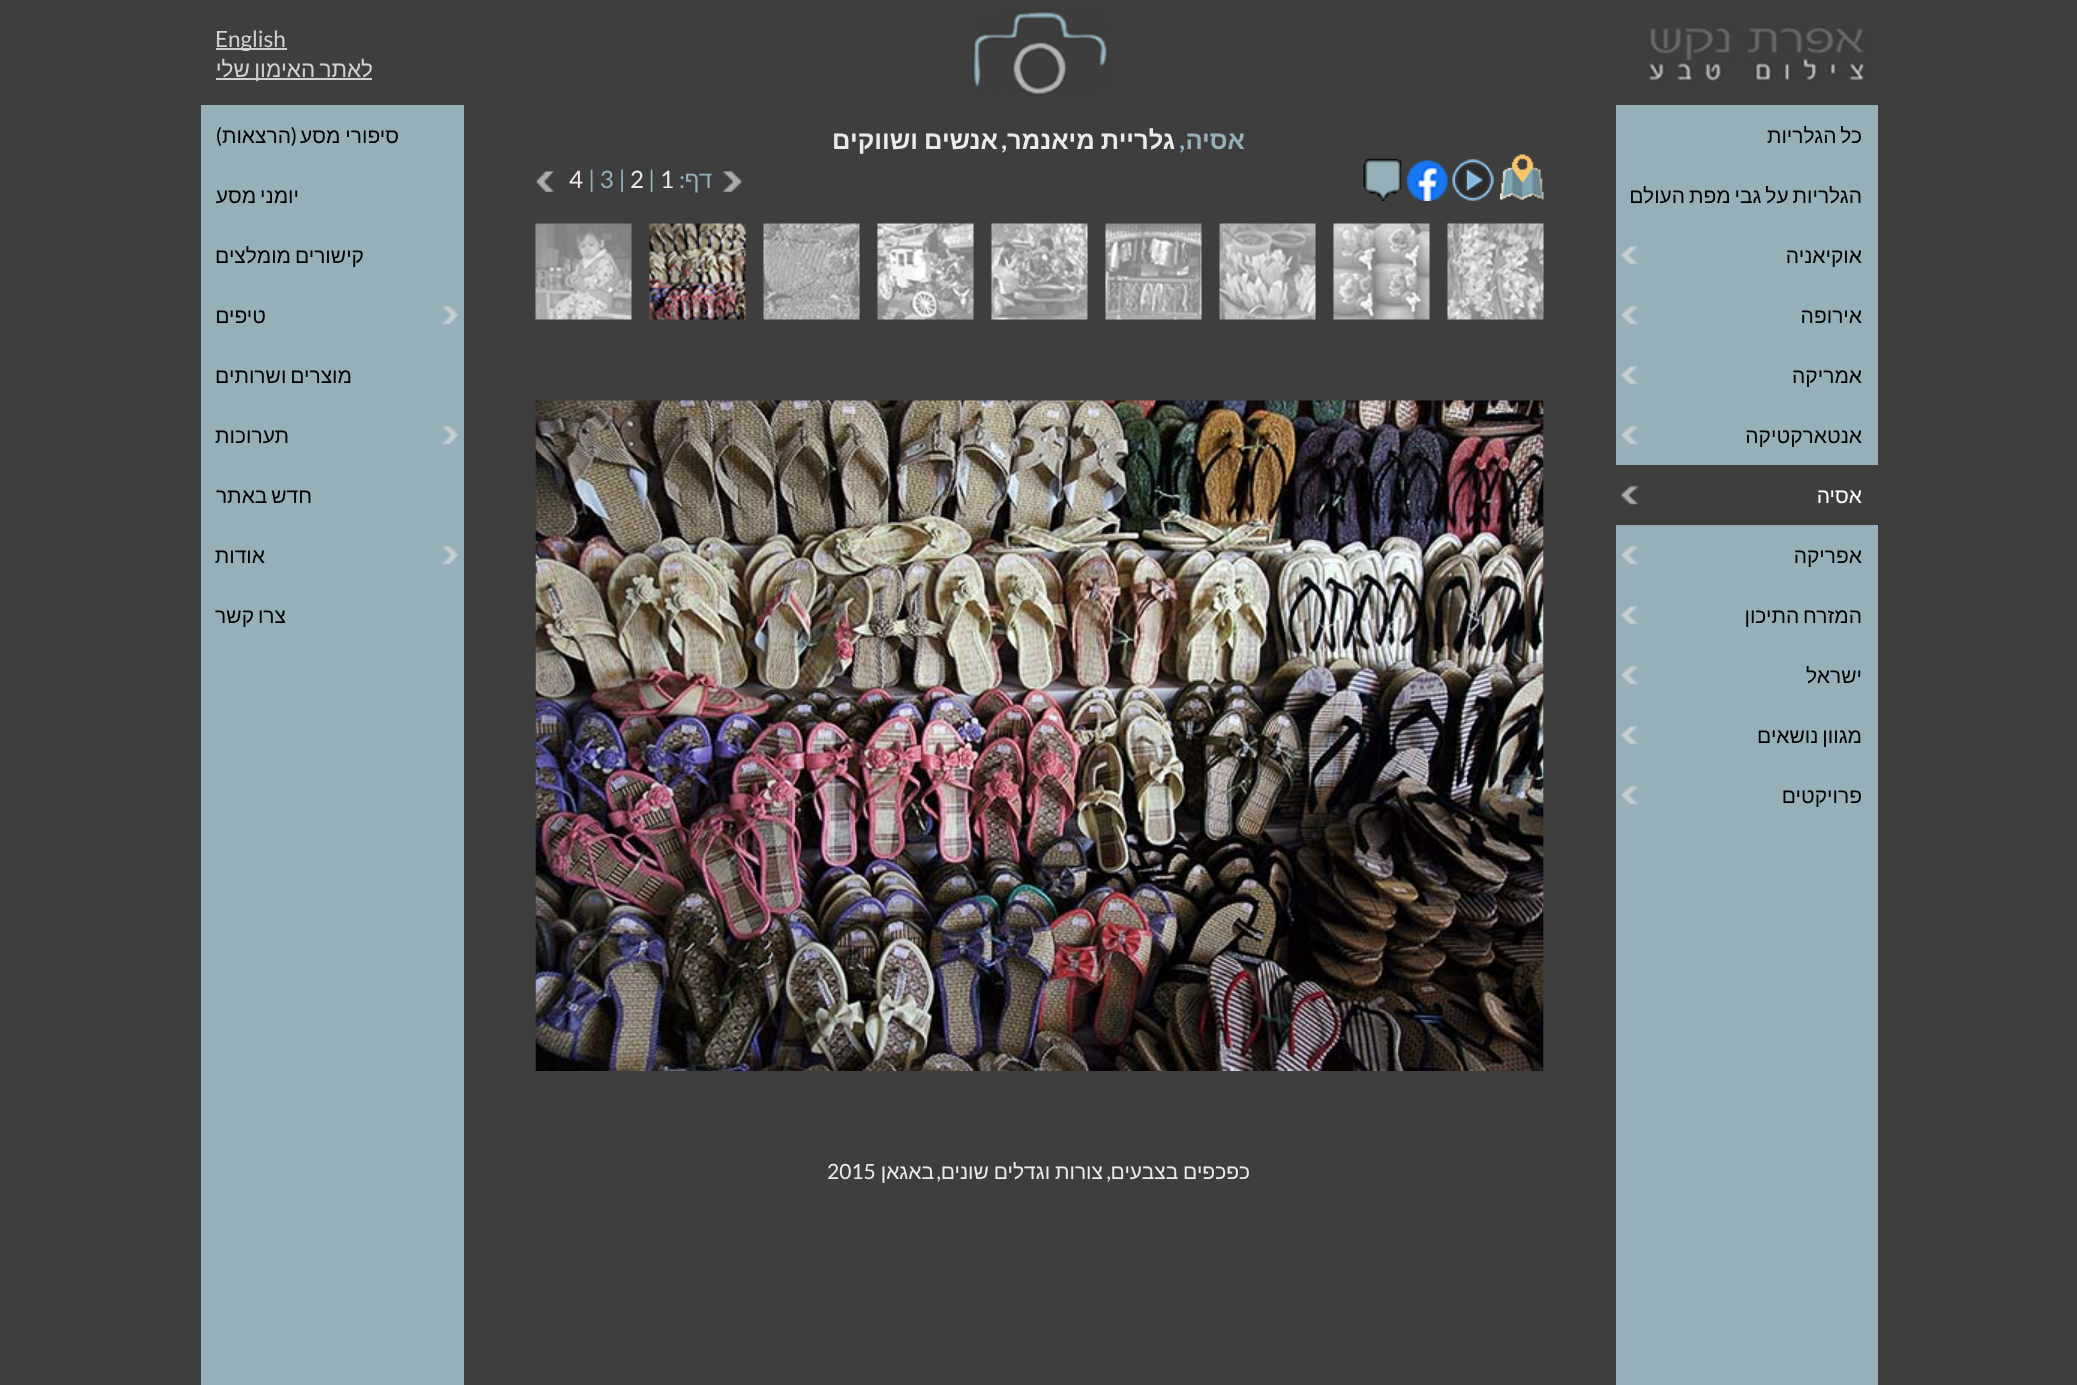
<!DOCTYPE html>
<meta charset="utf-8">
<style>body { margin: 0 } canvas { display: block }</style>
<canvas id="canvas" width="2077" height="1385"></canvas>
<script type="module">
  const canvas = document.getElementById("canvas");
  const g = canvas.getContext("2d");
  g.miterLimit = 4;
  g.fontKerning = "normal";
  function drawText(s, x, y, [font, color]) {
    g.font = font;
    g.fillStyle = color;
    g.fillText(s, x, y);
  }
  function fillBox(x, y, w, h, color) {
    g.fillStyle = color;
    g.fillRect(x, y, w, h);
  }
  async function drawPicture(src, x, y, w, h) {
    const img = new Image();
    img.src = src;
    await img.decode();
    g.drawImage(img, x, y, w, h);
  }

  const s1 = ["22.5px Lato", "#D1D1D1"];
  const s2 = ["22.5px Liberation Sans", "#D1D1D1"];
  const s3 = ["21px Liberation Sans", "#000000"];
  const s4 = ["21px Liberation Sans", "#FFFFFF"];
  const s5 = ["21px Lato", "#000000"];
  const s6 = ["bold 25.5px Liberation Sans", "#95B0B9"];
  const s7 = ["bold 25.5px Lato", "#95B0B9"];
  const s8 = ["bold 25.5px Liberation Sans", "#EBEBEB"];
  const s9 = ["bold 25.5px Lato", "#EBEBEB"];
  const s10 = ["24px Liberation Sans", "#95B0B9"];
  const s11 = ["24px Lato", "#95B0B9"];
  const s12 = ["24px Lato", "#EBEBEB"];
  const s13 = ["21px Liberation Sans", "#EBEBEB"];
  const s14 = ["21px Lato", "#EBEBEB"];

  fillBox(0, 0, 2077, 1385, "#3E3E3E");
  await drawPicture("pic1.png", 972, 10, 137, 86);
  await drawPicture("pic2.png", 1648, 26, 218, 55);
  fillBox(216, 48, 71, 2, "#D1D1D1");
  drawText("English", 215, 47, s1);
  fillBox(216, 78, 156, 2, "#D1D1D1");
  g.wordSpacing = "-2px";
  g.direction = "rtl";
  drawText("לאתר האימון שלי", 373, 77, s2);
  fillBox(1616, 105, 262, 1280, "#95B0B9");
  drawText("כל הגלריות", 1862, 143, s3);
  drawText("הגלריות על גבי מפת העולם", 1862, 203, s3);
  await drawPicture("pic3.png", 1621, 245, 17, 20);
  g.wordSpacing = "0px";
  drawText("אוקיאניה", 1862, 263, s3);
  await drawPicture("pic3.png", 1621, 305, 17, 20);
  drawText("אירופה", 1862, 323, s3);
  await drawPicture("pic3.png", 1621, 365, 17, 20);
  drawText("אמריקה", 1862, 383, s3);
  await drawPicture("pic3.png", 1621, 425, 17, 20);
  drawText("אנטארקטיקה", 1862, 443, s3);
  fillBox(1616, 465, 262, 60, "#3E3E3E");
  await drawPicture("pic4.png", 1620, 485, 18, 20);
  drawText("אסיה", 1862, 503, s4);
  await drawPicture("pic3.png", 1621, 545, 17, 20);
  drawText("אפריקה", 1862, 563, s3);
  await drawPicture("pic3.png", 1621, 605, 17, 20);
  g.wordSpacing = "-2px";
  drawText("המזרח התיכון", 1862, 623, s3);
  await drawPicture("pic3.png", 1621, 665, 17, 20);
  g.wordSpacing = "0px";
  drawText("ישראל", 1862, 683, s3);
  await drawPicture("pic3.png", 1621, 725, 17, 20);
  g.wordSpacing = "-2px";
  drawText("מגוון נושאים", 1862, 743, s3);
  await drawPicture("pic3.png", 1621, 785, 17, 20);
  g.wordSpacing = "0px";
  drawText("פרויקטים", 1862, 803, s3);
  fillBox(201, 105, 263, 1280, "#95B0B9");
  g.wordSpacing = "-1px";
  drawText("סיפורי מסע", 399, 143, s3);
  g.wordSpacing = "0px";
  drawText("(", 297, 143, s5);
  drawText("הרצאות", 291, 143, s3);
  drawText(")", 222, 143, s5);
  g.wordSpacing = "-2px";
  drawText("יומני מסע", 299, 203, s3);
  drawText("קישורים מומלצים", 364, 263, s3);
  await drawPicture("pic5.png", 442, 305, 16, 20);
  g.wordSpacing = "0px";
  drawText("טיפים", 266, 323, s3);
  g.wordSpacing = "-2px";
  drawText("מוצרים ושרותים", 352, 383, s3);
  await drawPicture("pic5.png", 442, 425, 16, 20);
  g.wordSpacing = "0px";
  drawText("תערוכות", 289, 443, s3);
  g.wordSpacing = "-2px";
  drawText("חדש באתר", 312, 503, s3);
  await drawPicture("pic5.png", 442, 545, 16, 20);
  g.wordSpacing = "0px";
  drawText("אודות", 265, 563, s3);
  g.wordSpacing = "-2px";
  drawText("צרו קשר", 286, 623, s3);
  g.wordSpacing = "0px";
  drawText("אסיה", 1245, 149, s6);
  drawText(",", 1185, 149, s7);
  g.wordSpacing = "-1px";
  drawText("גלריית מיאנמר", 1175, 149, s8);
  g.wordSpacing = "0px";
  drawText(",", 1007, 149, s9);
  g.wordSpacing = "-1px";
  drawText("אנשים ושווקים", 998, 149, s8);
  await drawPicture("pic6.png", 1500, 154, 44, 46);
  await drawPicture("pic7.png", 1452, 159, 42, 42);
  await drawPicture("pic8.png", 1407, 160, 41, 41);
  await drawPicture("pic9.png", 1363, 158, 39, 43);
  await drawPicture("pic10.png", 722, 171, 20, 21);
  g.wordSpacing = "0px";
  drawText("דף", 712, 188, s10);
  drawText(":", 685, 188, s11);
  g.direction = "ltr";
  drawText("1", 660, 188, s12);
  drawText("|", 648, 188, s11);
  drawText("2", 630, 188, s12);
  drawText("| 3 |", 588, 188, s11);
  drawText("4", 569, 188, s12);
  await drawPicture("pic11.png", 536, 171, 18, 21);
  await drawPicture("pic12.png", 1447, 223, 97, 97);
  await drawPicture("pic13.png", 1333, 223, 97, 97);
  await drawPicture("pic14.png", 1219, 223, 97, 97);
  await drawPicture("pic15.png", 1105, 223, 97, 97);
  await drawPicture("pic16.png", 991, 223, 97, 97);
  await drawPicture("pic17.png", 877, 223, 97, 97);
  await drawPicture("pic18.png", 763, 223, 97, 97);
  await drawPicture("pic19.png", 649, 223, 97, 97);
  await drawPicture("pic20.png", 535, 223, 97, 97);
  await drawPicture("pic21.png", 535, 400, 1009, 671);
  g.wordSpacing = "-1px";
  g.direction = "rtl";
  drawText("כפכפים בצבעים", 1250, 1179, s13);
  g.wordSpacing = "0px";
  drawText(",", 1111, 1179, s14);
  g.wordSpacing = "-1px";
  drawText("צורות וגדלים שונים", 1103, 1179, s13);
  g.wordSpacing = "0px";
  drawText(",", 941, 1179, s14);
  drawText("באגאן", 934, 1179, s13);
  g.direction = "ltr";
  drawText("2015", 827, 1179, s14);
</script>
